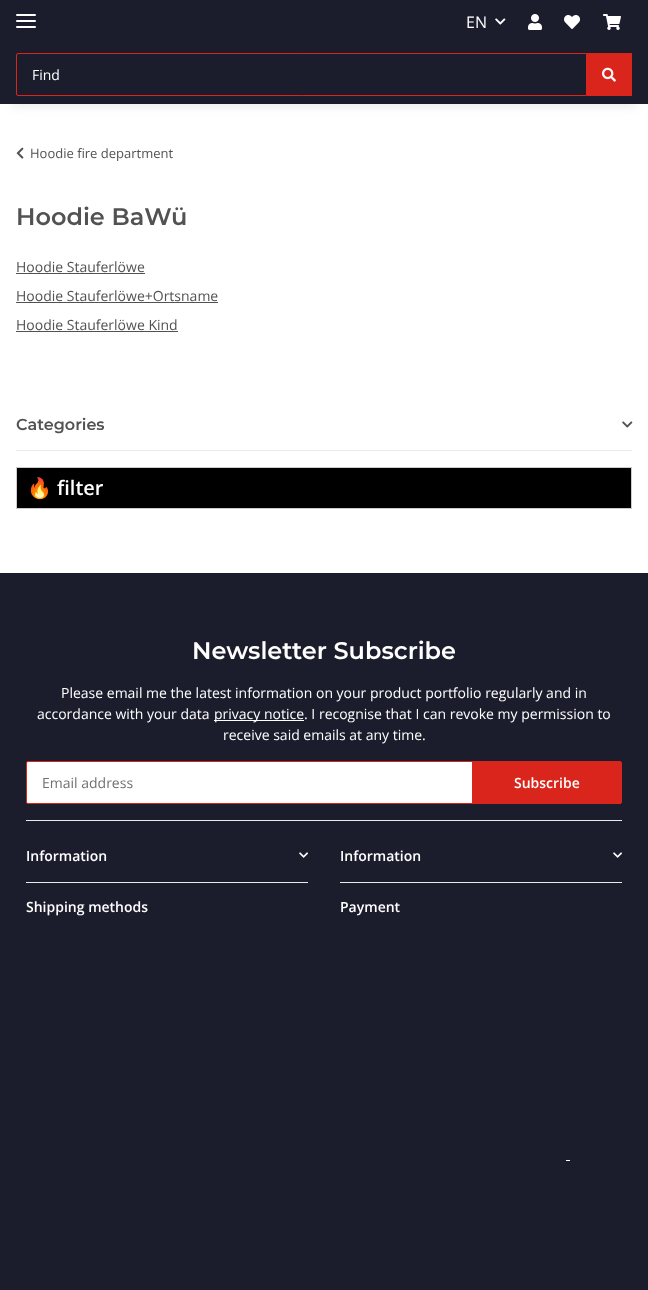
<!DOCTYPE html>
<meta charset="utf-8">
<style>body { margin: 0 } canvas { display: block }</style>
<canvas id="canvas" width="648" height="1290"></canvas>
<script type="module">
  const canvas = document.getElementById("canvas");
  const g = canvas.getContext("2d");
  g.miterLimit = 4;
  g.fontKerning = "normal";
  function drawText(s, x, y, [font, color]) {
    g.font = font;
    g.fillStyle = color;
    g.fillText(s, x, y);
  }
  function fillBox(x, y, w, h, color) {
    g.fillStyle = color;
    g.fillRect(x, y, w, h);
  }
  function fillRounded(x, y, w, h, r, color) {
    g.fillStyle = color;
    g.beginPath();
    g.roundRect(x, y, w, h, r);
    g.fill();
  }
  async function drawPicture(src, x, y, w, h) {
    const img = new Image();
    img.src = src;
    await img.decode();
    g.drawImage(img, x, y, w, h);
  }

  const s1 = ["16px Open Sans", "#FFFFFF"];
  const s2 = ["14px Open Sans", "#FFFFFF"];
  const s3 = ["13px Open Sans", "#525252"];
  const s4 = ["600 24px Montserrat", "#525252"];
  const s5 = ["14px Open Sans", "#525252"];
  const s6 = ["600 16px Montserrat", "#525252"];
  const s7 = ["bold 20px Noto Color Emoji", "#FFFFFF"];
  const s8 = ["600 20px Open Sans", "#FFFFFF"];
  const s9 = ["600 24px Montserrat", "#FFFFFF"];
  const s10 = ["14px Open Sans", "#707070"];
  const s11 = ["600 14px Open Sans", "#FFFFFF"];

  fillBox(0, 0, 648, 1290, "#FFFFFF");
  g.fillStyle = "rgba(0, 0, 0, 0.06)";
  g.filter = "blur(4.5px)";
  g.beginPath();
  g.rect(12, 28, 624, 80);
  g.fill();
  g.filter = "none";
  fillBox(0, 0, 648, 104, "#1C1D2C");
  fillRounded(16, 20, 20, 2, 1, "#FFFFFF");
  fillRounded(16, 14, 20, 2, 1, "#FFFFFF");
  fillRounded(16, 26, 20, 2, 1, "#FFFFFF");
  drawText("EN", 466, 28, s1);
  await drawPicture("pic1.png", 495, 18, 11, 7);
  await drawPicture("pic2.png", 528, 14, 14, 16);
  await drawPicture("pic3.png", 564, 15, 16, 14);
  await drawPicture("pic4.png", 603, 14, 18, 16);
  g.beginPath();
  g.roundRect(16.5, 53.5, 570, 42, [1.5, 0, 0, 1.5]);
  g.strokeStyle = "#DA251C";
  g.stroke();
  drawText("Find", 32, 80, s2);
  fillBox(587, 53, 45, 43, "#DA251C");
  await drawPicture("pic5.png", 602, 67, 14, 15);
  await drawPicture("pic6.png", 16, 147, 8, 12);
  drawText("Hoodie fire department", 30, 158, s3);
  drawText("Hoodie BaWü", 16, 225, s4);
  drawText("Hoodie Stauferlöwe", 16, 272, s5);
  fillBox(16, 273, 129, 1, "#525252");
  drawText("Hoodie Stauferlöwe+Ortsname", 16, 301, s5);
  fillBox(16, 302, 202, 1, "#525252");
  drawText("Hoodie Stauferlöwe Kind", 16, 330, s5);
  fillBox(16, 331, 162, 1, "#525252");
  drawText("Categories", 16, 430, s6);
  await drawPicture("pic7.png", 622, 421, 11, 7);
  fillBox(16, 450, 616, 1, "#EBEBEB");
  g.fillStyle = "#000000";
  g.beginPath();
  g.rect(16.5, 467.5, 615, 41);
  g.fill();
  g.strokeStyle = "#CCCCCC";
  g.stroke();
  drawText("🔥", 27, 495, s7);
  drawText("filter", 57, 495, s8);
  fillBox(0, 573, 648, 717, "#1C1D2C");
  drawText("Newsletter Subscribe", 192, 659, s9);
  drawText("Please email me the latest information on your product portfolio regularly and in", 61, 698, s2);
  drawText("accordance with your data", 37, 719, s2);
  fillBox(214, 720, 90, 1, "#FFFFFF");
  drawText("privacy notice. I recognise that I can revoke my permission to", 214, 719, s2);
  drawText("receive said emails at any time.", 223, 740, s2);
  g.beginPath();
  g.roundRect(26.5, 761.5, 446, 42, [1.5, 0, 0, 1.5]);
  g.fill();
  g.strokeStyle = "#DA251C";
  g.stroke();
  drawText("Email address", 42, 788, s10);
  g.fillStyle = "#DA251C";
  g.beginPath();
  g.roundRect(472.5, 761.5, 149, 42, [0, 1.5, 1.5, 0]);
  g.fill();
  g.stroke();
  drawText("Subscribe", 514, 788, s11);
  fillBox(26, 820, 596, 1, "#EBEBEB");
  drawText("Information", 26, 861, s11);
  await drawPicture("pic8.png", 299, 852, 9, 6);
  fillBox(26, 882, 282, 1, "#EBEBEB");
  drawText("Information", 340, 861, s11);
  await drawPicture("pic8.png", 613, 852, 9, 6);
  fillBox(340, 882, 282, 1, "#EBEBEB");
  drawText("Shipping methods", 26, 912, s11);
  drawText("Payment", 340, 912, s11);
  fillBox(566, 1160, 4, 1, "#FFFFFF");
</script>
